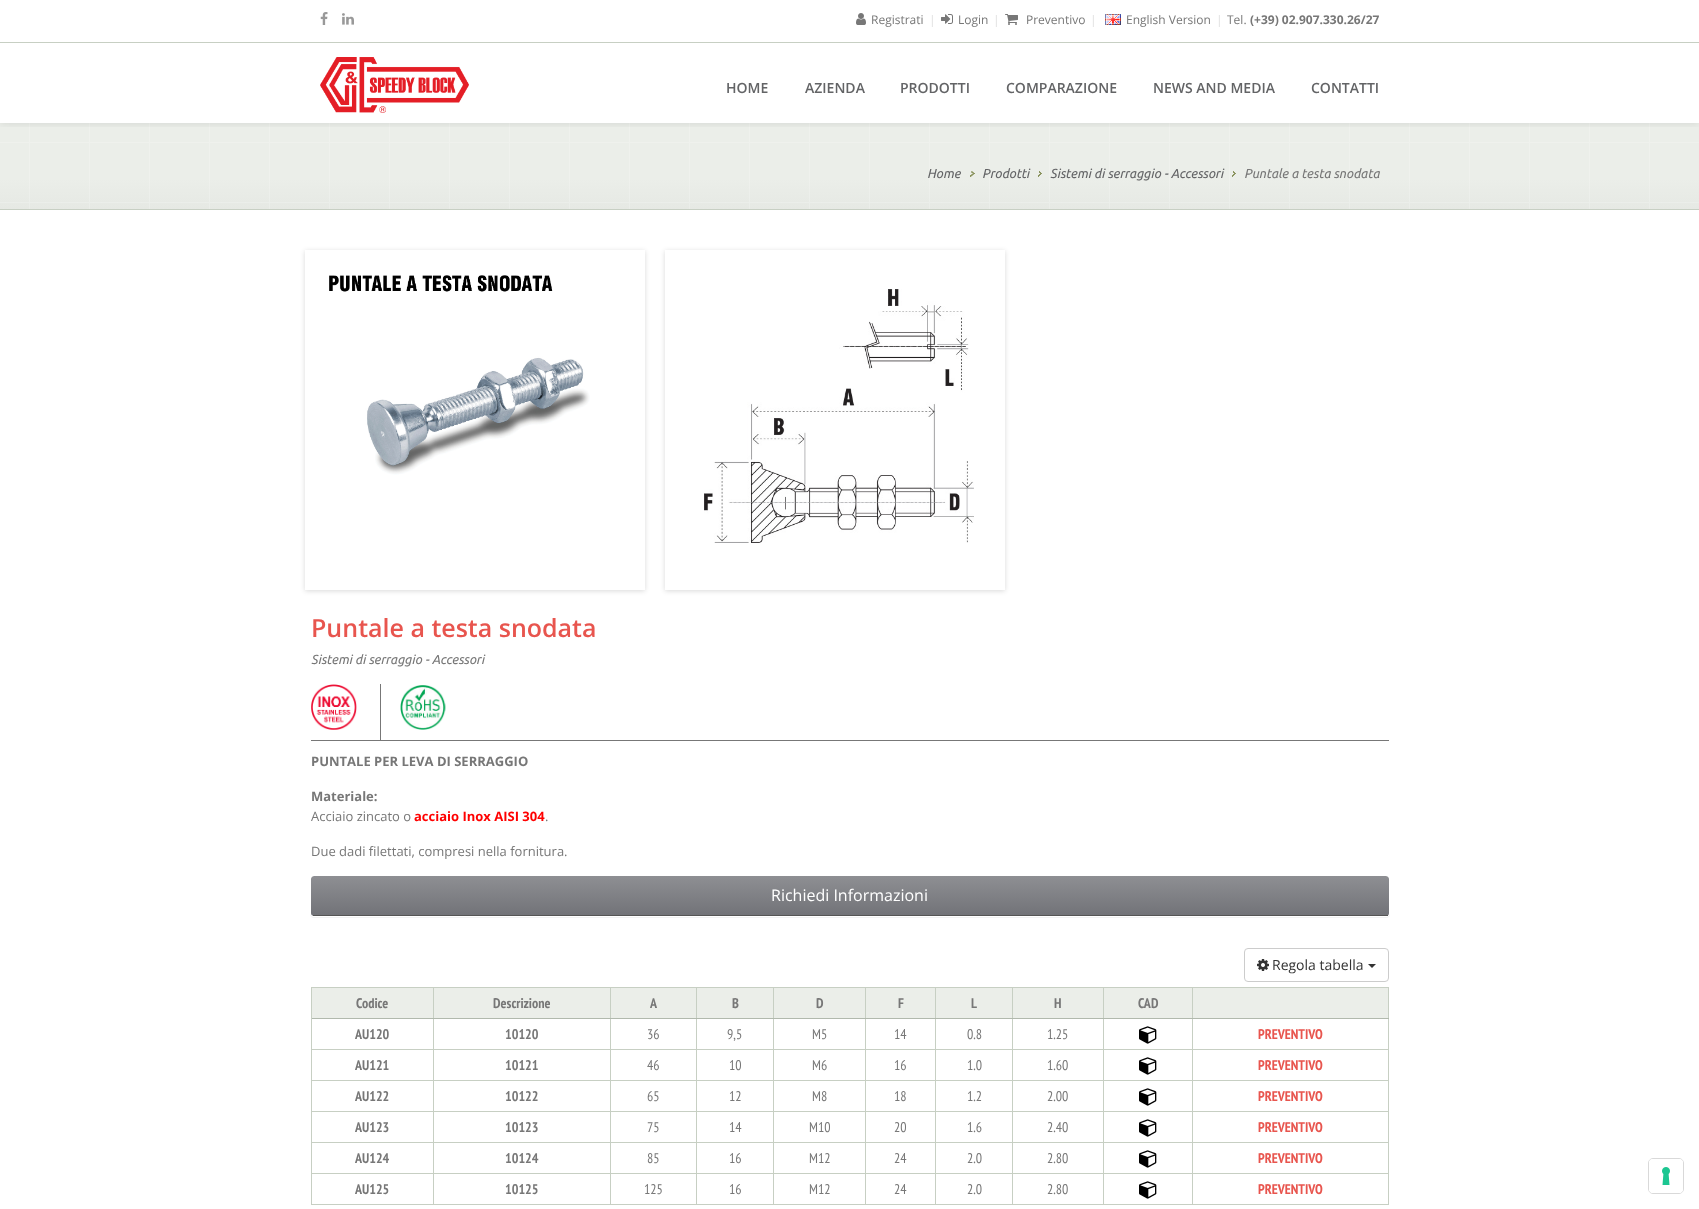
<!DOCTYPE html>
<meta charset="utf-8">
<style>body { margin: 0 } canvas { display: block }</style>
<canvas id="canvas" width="1699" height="1209"></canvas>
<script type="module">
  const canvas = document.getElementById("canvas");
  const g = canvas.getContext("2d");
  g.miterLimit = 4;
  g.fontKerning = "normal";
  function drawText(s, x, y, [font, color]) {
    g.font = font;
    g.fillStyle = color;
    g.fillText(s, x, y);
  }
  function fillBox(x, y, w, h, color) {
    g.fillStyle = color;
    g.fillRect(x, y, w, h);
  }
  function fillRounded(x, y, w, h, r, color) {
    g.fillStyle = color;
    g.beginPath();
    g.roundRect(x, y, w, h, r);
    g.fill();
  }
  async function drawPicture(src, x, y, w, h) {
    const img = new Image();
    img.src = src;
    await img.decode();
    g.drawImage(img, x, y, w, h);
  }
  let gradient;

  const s1 = ["12px Open Sans", "#777777"];
  const s2 = ["12px Open Sans", "#DEDEDE"];
  const s3 = ["bold 12px Open Sans", "#777777"];
  const s4 = ["600 14px Open Sans", "#636466"];
  const s5 = ["italic 13px Ubuntu", "#636466"];
  const s6 = ["italic 13px Ubuntu", "#777777"];
  const s7 = ["600 25px Open Sans", "#E8554E"];
  const s8 = ["bold 13px Open Sans", "#777777"];
  const s9 = ["13px Open Sans", "#777777"];
  const s10 = ["bold 13px Open Sans", "#FF0000"];
  const s11 = ["16px Open Sans", "#FFFFFF"];
  const s12 = ["14px Open Sans", "#333333"];
  const s13 = ["bold 14px PT Sans Narrow", "#777777"];
  const s14 = ["14px PT Sans Narrow", "#777777"];
  const s15 = ["bold 14px PT Sans Narrow", "#E8554E"];

  fillBox(0, 0, 1699, 1209, "#FFFFFF");
  gradient = g.createLinearGradient(850, 209, 850, 123);
  gradient.addColorStop(0, "#E6E9E4");
  gradient.addColorStop(0.35, "#EBEEE9");
  g.fillStyle = gradient;
  g.fillRect(0, 123, 1699, 86);
  await drawPicture("pic8.png", 0, 123, 1699, 86);
  g.save();
  g.beginPath();
  g.rect(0, 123, 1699, 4);
  g.clip();
  g.fillStyle = "rgba(0, 0, 0, 0.1)";
  g.filter = "blur(5px)";
  g.beginPath();
  g.rect(0, 0, 1699, 123);
  g.fill();
  g.filter = "none";
  g.restore();
  fillBox(0, 42, 1699, 1, "#C7CFC3");
  await drawPicture("pic1.png", 320, 12, 8, 13);
  await drawPicture("pic2.png", 342, 13, 12, 12);
  await drawPicture("pic3.png", 856, 13, 10, 12);
  drawText("Registrati", 871, 24, s1);
  drawText("|", 929, 24, s2);
  await drawPicture("pic4.png", 941, 14, 12, 10);
  drawText("Login", 958, 24, s1);
  drawText("|", 993, 24, s2);
  await drawPicture("pic5.png", 1005, 14, 13, 11);
  drawText("Preventivo", 1026, 24, s1);
  drawText("|", 1090, 24, s2);
  await drawPicture("pic6.png", 1105, 14, 16, 11);
  drawText("English Version", 1126, 24, s1);
  drawText("|", 1216, 24, s2);
  drawText("Tel.", 1227, 24, s1);
  drawText("(+39) 02.907.330.26/27", 1250, 24, s3);
  await drawPicture("pic7.png", 320, 57, 149, 56);
  drawText("HOME", 726, 93, s4);
  drawText("AZIENDA", 805, 93, s4);
  drawText("PRODOTTI", 900, 93, s4);
  drawText("COMPARAZIONE", 1006, 93, s4);
  drawText("NEWS AND MEDIA", 1153, 93, s4);
  drawText("CONTATTI", 1311, 93, s4);
  fillBox(0, 209, 1699, 1, "#C7CFC3");
  drawText("Home", 927, 178, s5);
  await drawPicture("pic9.png", 970, 171, 5, 6);
  drawText("Prodotti", 982, 178, s5);
  await drawPicture("pic10.png", 1038, 171, 4, 6);
  drawText("Sistemi di serraggio - Accessori", 1050, 178, s5);
  await drawPicture("pic10.png", 1232, 171, 4, 6);
  drawText("Puntale a testa snodata", 1244, 178, s6);
  g.save();
  g.beginPath();
  g.moveTo(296, 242);
  g.lineTo(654, 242);
  g.lineTo(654, 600);
  g.lineTo(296, 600);
  g.closePath();
  g.moveTo(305, 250);
  g.lineTo(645, 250);
  g.lineTo(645, 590);
  g.lineTo(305, 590);
  g.closePath();
  g.clip("evenodd");
  g.fillStyle = "rgba(0, 0, 0, 0.15)";
  g.filter = "blur(2.5px)";
  g.beginPath();
  g.rect(305, 251, 340, 340);
  g.fill();
  g.filter = "none";
  g.restore();
  await drawPicture("pic11.png", 329, 275, 261, 200);
  g.save();
  g.beginPath();
  g.moveTo(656, 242);
  g.lineTo(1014, 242);
  g.lineTo(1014, 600);
  g.lineTo(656, 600);
  g.closePath();
  g.moveTo(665, 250);
  g.lineTo(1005, 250);
  g.lineTo(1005, 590);
  g.lineTo(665, 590);
  g.closePath();
  g.clip("evenodd");
  g.fillStyle = "rgba(0, 0, 0, 0.15)";
  g.filter = "blur(2.5px)";
  g.beginPath();
  g.rect(665, 251, 340, 340);
  g.fill();
  g.filter = "none";
  g.restore();
  await drawPicture("pic12.png", 704, 289, 270, 254);
  g.fillStyle = "rgba(0, 0, 0, 0.05)";
  g.filter = "blur(0.5px)";
  g.beginPath();
  g.roundRect(310, 611, 1080, 307, 4);
  g.fill();
  g.filter = "none";
  fillRounded(310, 610, 1080, 307, 4, "#FFFFFF");
  drawText("Puntale a testa snodata", 311, 637, s7);
  drawText("Sistemi di serraggio - Accessori", 311, 664, s6);
  fillBox(311, 740, 1078, 1, "#777777");
  await drawPicture("pic13.png", 311, 684, 46, 46);
  fillBox(380, 684, 1, 56, "#777777");
  await drawPicture("pic14.png", 400, 685, 46, 45);
  drawText("PUNTALE PER LEVA DI SERRAGGIO", 311, 766, s8);
  drawText("Materiale:", 311, 801, s8);
  drawText("Acciaio zincato o", 311, 821, s9);
  drawText("acciaio Inox AISI 304", 414, 821, s10);
  drawText(".", 545, 821, s9);
  drawText("Due dadi filettati, compresi nella fornitura.", 311, 856, s9);
  g.save();
  g.beginPath();
  g.roundRect(311, 876, 1078, 40, 3);
  g.clip();
  gradient = g.createLinearGradient(850, 876, 850, 915);
  gradient.addColorStop(0, "#8E8F93");
  gradient.addColorStop(1, "#727378");
  g.fillStyle = gradient;
  g.beginPath();
  g.roundRect(311, 876, 1078, 39, [3, 3, 0, 0]);
  g.fill();
  gradient = g.createLinearGradient(850, 915, 850, 954);
  gradient.addColorStop(0, "#8E8F93");
  gradient.addColorStop(1, "#727378");
  g.fillStyle = gradient;
  g.fillRect(311, 915, 1078, 1);
  g.restore();
  fillBox(313, 915, 1075, 1, "#555555");
  drawText("Richiedi Informazioni", 771, 901, s11);
  g.beginPath();
  g.roundRect(1244.5, 948.5, 144, 33, 3.5);
  g.strokeStyle = "#CCCCCC";
  g.stroke();
  await drawPicture("pic15.png", 1257, 959, 12, 12);
  drawText("Regola tabella", 1272, 970, s12);
  g.beginPath();
  g.moveTo(1368, 964);
  g.lineTo(1376, 964);
  g.lineTo(1372, 968);
  g.closePath();
  g.fill();
  fillBox(312, 988, 121, 30, "#EBEEE9");
  fillBox(1192, 987, 197, 1, "#C7CFC3");
  fillBox(1192, 1049, 197, 1, "#C7CFC3");
  fillBox(1192, 1080, 197, 1, "#C7CFC3");
  fillBox(1192, 1111, 197, 1, "#C7CFC3");
  fillBox(1192, 1142, 197, 1, "#C7CFC3");
  fillBox(1192, 1173, 197, 1, "#C7CFC3");
  fillBox(1388, 1173, 1, 32, "#C7CFC3");
  fillBox(1388, 1142, 1, 32, "#C7CFC3");
  fillBox(1388, 1111, 1, 32, "#C7CFC3");
  fillBox(1388, 1080, 1, 32, "#C7CFC3");
  fillBox(1388, 1018, 1, 63, "#C7CFC3");
  fillBox(1388, 987, 1, 32, "#C7CFC3");
  fillBox(1192, 1204, 197, 1, "#C7CFC3");
  fillBox(1192, 1173, 1, 32, "#C7CFC3");
  fillBox(1103, 1173, 90, 1, "#C7CFC3");
  fillBox(1192, 1142, 1, 32, "#C7CFC3");
  fillBox(1103, 1142, 90, 1, "#C7CFC3");
  fillBox(1192, 1111, 1, 32, "#C7CFC3");
  fillBox(1103, 1111, 90, 1, "#C7CFC3");
  fillBox(1192, 1080, 1, 32, "#C7CFC3");
  fillBox(1103, 1080, 90, 1, "#C7CFC3");
  fillBox(1192, 1049, 1, 32, "#C7CFC3");
  fillBox(1103, 1049, 90, 1, "#C7CFC3");
  fillBox(1192, 1018, 1, 32, "#C7CFC3");
  fillBox(1192, 1018, 197, 1, "#B1B9AD");
  fillBox(1192, 987, 1, 32, "#C7CFC3");
  fillBox(1103, 987, 90, 1, "#C7CFC3");
  fillBox(1103, 1204, 90, 1, "#C7CFC3");
  fillBox(1103, 1173, 1, 32, "#C7CFC3");
  fillBox(1012, 1173, 92, 1, "#C7CFC3");
  fillBox(1103, 1142, 1, 32, "#C7CFC3");
  fillBox(1012, 1142, 92, 1, "#C7CFC3");
  fillBox(1103, 1111, 1, 32, "#C7CFC3");
  fillBox(1012, 1111, 92, 1, "#C7CFC3");
  fillBox(1103, 1080, 1, 32, "#C7CFC3");
  fillBox(1012, 1080, 92, 1, "#C7CFC3");
  fillBox(1103, 1049, 1, 32, "#C7CFC3");
  fillBox(1012, 1049, 92, 1, "#C7CFC3");
  fillBox(1103, 1018, 1, 32, "#C7CFC3");
  fillBox(1103, 1018, 90, 1, "#B1B9AD");
  fillBox(1103, 987, 1, 32, "#C7CFC3");
  fillBox(1012, 987, 92, 1, "#C7CFC3");
  fillBox(1012, 1204, 92, 1, "#C7CFC3");
  fillBox(1012, 1173, 1, 32, "#C7CFC3");
  fillBox(935, 1173, 78, 1, "#C7CFC3");
  fillBox(1012, 1142, 1, 32, "#C7CFC3");
  fillBox(935, 1142, 78, 1, "#C7CFC3");
  fillBox(1012, 1111, 1, 32, "#C7CFC3");
  fillBox(935, 1111, 78, 1, "#C7CFC3");
  fillBox(1012, 1080, 1, 32, "#C7CFC3");
  fillBox(935, 1080, 78, 1, "#C7CFC3");
  fillBox(1012, 1049, 1, 32, "#C7CFC3");
  fillBox(935, 1049, 78, 1, "#C7CFC3");
  fillBox(1012, 1018, 1, 32, "#C7CFC3");
  fillBox(1012, 1018, 92, 1, "#B1B9AD");
  fillBox(1012, 987, 1, 32, "#C7CFC3");
  fillBox(935, 987, 78, 1, "#C7CFC3");
  fillBox(935, 1204, 78, 1, "#C7CFC3");
  fillBox(935, 1173, 1, 32, "#C7CFC3");
  fillBox(865, 1173, 71, 1, "#C7CFC3");
  fillBox(935, 1142, 1, 32, "#C7CFC3");
  fillBox(865, 1142, 71, 1, "#C7CFC3");
  fillBox(935, 1111, 1, 32, "#C7CFC3");
  fillBox(865, 1111, 71, 1, "#C7CFC3");
  fillBox(935, 1080, 1, 32, "#C7CFC3");
  fillBox(865, 1080, 71, 1, "#C7CFC3");
  fillBox(935, 1049, 1, 32, "#C7CFC3");
  fillBox(865, 1049, 71, 1, "#C7CFC3");
  fillBox(935, 1018, 1, 32, "#C7CFC3");
  fillBox(935, 1018, 78, 1, "#B1B9AD");
  fillBox(935, 987, 1, 32, "#C7CFC3");
  fillBox(865, 987, 71, 1, "#C7CFC3");
  fillBox(865, 1204, 71, 1, "#C7CFC3");
  fillBox(865, 1173, 1, 32, "#C7CFC3");
  fillBox(773, 1173, 93, 1, "#C7CFC3");
  fillBox(865, 1142, 1, 32, "#C7CFC3");
  fillBox(773, 1142, 93, 1, "#C7CFC3");
  fillBox(865, 1111, 1, 32, "#C7CFC3");
  fillBox(773, 1111, 93, 1, "#C7CFC3");
  fillBox(865, 1080, 1, 32, "#C7CFC3");
  fillBox(773, 1080, 93, 1, "#C7CFC3");
  fillBox(865, 1049, 1, 32, "#C7CFC3");
  fillBox(773, 1049, 93, 1, "#C7CFC3");
  fillBox(865, 1018, 1, 32, "#C7CFC3");
  fillBox(865, 1018, 71, 1, "#B1B9AD");
  fillBox(865, 987, 1, 32, "#C7CFC3");
  fillBox(773, 987, 93, 1, "#C7CFC3");
  fillBox(773, 1204, 93, 1, "#C7CFC3");
  fillBox(773, 1173, 1, 32, "#C7CFC3");
  fillBox(696, 1173, 78, 1, "#C7CFC3");
  fillBox(773, 1142, 1, 32, "#C7CFC3");
  fillBox(696, 1142, 78, 1, "#C7CFC3");
  fillBox(773, 1111, 1, 32, "#C7CFC3");
  fillBox(696, 1111, 78, 1, "#C7CFC3");
  fillBox(773, 1080, 1, 32, "#C7CFC3");
  fillBox(696, 1080, 78, 1, "#C7CFC3");
  fillBox(773, 1049, 1, 32, "#C7CFC3");
  fillBox(696, 1049, 78, 1, "#C7CFC3");
  fillBox(773, 1018, 1, 32, "#C7CFC3");
  fillBox(773, 1018, 93, 1, "#B1B9AD");
  fillBox(773, 987, 1, 32, "#C7CFC3");
  fillBox(696, 987, 78, 1, "#C7CFC3");
  fillBox(696, 1204, 78, 1, "#C7CFC3");
  fillBox(696, 1173, 1, 32, "#C7CFC3");
  fillBox(610, 1173, 87, 1, "#C7CFC3");
  fillBox(696, 1142, 1, 32, "#C7CFC3");
  fillBox(610, 1142, 87, 1, "#C7CFC3");
  fillBox(696, 1111, 1, 32, "#C7CFC3");
  fillBox(610, 1111, 87, 1, "#C7CFC3");
  fillBox(696, 1080, 1, 32, "#C7CFC3");
  fillBox(610, 1080, 87, 1, "#C7CFC3");
  fillBox(696, 1049, 1, 32, "#C7CFC3");
  fillBox(610, 1049, 87, 1, "#C7CFC3");
  fillBox(696, 1018, 1, 32, "#C7CFC3");
  fillBox(696, 1018, 78, 1, "#B1B9AD");
  fillBox(696, 987, 1, 32, "#C7CFC3");
  fillBox(610, 987, 87, 1, "#C7CFC3");
  fillBox(610, 1204, 87, 1, "#C7CFC3");
  fillBox(610, 1173, 1, 32, "#C7CFC3");
  fillBox(433, 1173, 178, 1, "#C7CFC3");
  fillBox(610, 1142, 1, 32, "#C7CFC3");
  fillBox(433, 1142, 178, 1, "#C7CFC3");
  fillBox(610, 1111, 1, 32, "#C7CFC3");
  fillBox(433, 1111, 178, 1, "#C7CFC3");
  fillBox(610, 1080, 1, 32, "#C7CFC3");
  fillBox(433, 1080, 178, 1, "#C7CFC3");
  fillBox(610, 1049, 1, 32, "#C7CFC3");
  fillBox(433, 1049, 178, 1, "#C7CFC3");
  fillBox(610, 1018, 1, 32, "#C7CFC3");
  fillBox(610, 1018, 87, 1, "#B1B9AD");
  fillBox(610, 987, 1, 32, "#C7CFC3");
  fillBox(433, 987, 178, 1, "#C7CFC3");
  fillBox(433, 1204, 178, 1, "#C7CFC3");
  fillBox(433, 1173, 1, 32, "#C7CFC3");
  fillBox(311, 1173, 123, 1, "#C7CFC3");
  fillBox(433, 1142, 1, 32, "#C7CFC3");
  fillBox(311, 1142, 123, 1, "#C7CFC3");
  fillBox(433, 1111, 1, 32, "#C7CFC3");
  fillBox(311, 1111, 123, 1, "#C7CFC3");
  fillBox(433, 1080, 1, 32, "#C7CFC3");
  fillBox(311, 1080, 123, 1, "#C7CFC3");
  fillBox(433, 1049, 1, 32, "#C7CFC3");
  fillBox(311, 1049, 123, 1, "#C7CFC3");
  fillBox(433, 1018, 1, 32, "#C7CFC3");
  fillBox(433, 1018, 178, 1, "#B1B9AD");
  fillBox(433, 987, 1, 32, "#C7CFC3");
  fillBox(311, 987, 123, 1, "#C7CFC3");
  fillBox(311, 1204, 123, 1, "#C7CFC3");
  fillBox(311, 1173, 1, 32, "#C7CFC3");
  fillBox(311, 1142, 1, 32, "#C7CFC3");
  fillBox(311, 1111, 1, 32, "#C7CFC3");
  fillBox(311, 1080, 1, 32, "#C7CFC3");
  fillBox(311, 1018, 1, 63, "#C7CFC3");
  fillBox(311, 1018, 123, 1, "#B1B9AD");
  fillBox(311, 987, 1, 32, "#C7CFC3");
  drawText("Codice", 356, 1008, s13);
  fillBox(434, 988, 176, 30, "#EBEEE9");
  drawText("Descrizione", 493, 1008, s13);
  fillBox(611, 988, 85, 30, "#EBEEE9");
  drawText("A", 650, 1008, s13);
  fillBox(697, 988, 76, 30, "#EBEEE9");
  drawText("B", 732, 1008, s13);
  fillBox(774, 988, 91, 30, "#EBEEE9");
  drawText("D", 816, 1008, s13);
  fillBox(866, 988, 69, 30, "#EBEEE9");
  drawText("F", 898, 1008, s13);
  fillBox(936, 988, 76, 30, "#EBEEE9");
  drawText("L", 971, 1008, s13);
  fillBox(1013, 988, 90, 30, "#EBEEE9");
  drawText("H", 1054, 1008, s13);
  fillBox(1104, 988, 88, 30, "#EBEEE9");
  drawText("CAD", 1138, 1008, s13);
  fillBox(1193, 988, 195, 30, "#EBEEE9");
  drawText("AU120", 355, 1039, s13);
  drawText("10120", 505, 1039, s13);
  drawText("36", 647, 1039, s14);
  drawText("9,5", 727, 1039, s14);
  drawText("M5", 812, 1039, s14);
  drawText("14", 894, 1039, s14);
  drawText("0.8", 967, 1039, s14);
  drawText("1.25", 1047, 1039, s14);
  await drawPicture("pic16.png", 1139, 1026, 18, 18);
  drawText("PREVENTIVO", 1258, 1039, s15);
  drawText("AU121", 355, 1070, s13);
  drawText("10121", 505, 1070, s13);
  drawText("46", 647, 1070, s14);
  drawText("10", 729, 1070, s14);
  drawText("M6", 812, 1070, s14);
  drawText("16", 894, 1070, s14);
  drawText("1.0", 967, 1070, s14);
  drawText("1.60", 1047, 1070, s14);
  await drawPicture("pic16.png", 1139, 1057, 18, 18);
  drawText("PREVENTIVO", 1258, 1070, s15);
  drawText("AU122", 355, 1101, s13);
  drawText("10122", 505, 1101, s13);
  drawText("65", 647, 1101, s14);
  drawText("12", 729, 1101, s14);
  drawText("M8", 812, 1101, s14);
  drawText("18", 894, 1101, s14);
  drawText("1.2", 967, 1101, s14);
  drawText("2.00", 1047, 1101, s14);
  await drawPicture("pic16.png", 1139, 1088, 18, 18);
  drawText("PREVENTIVO", 1258, 1101, s15);
  drawText("AU123", 355, 1132, s13);
  drawText("10123", 505, 1132, s13);
  drawText("75", 647, 1132, s14);
  drawText("14", 729, 1132, s14);
  drawText("M10", 809, 1132, s14);
  drawText("20", 894, 1132, s14);
  drawText("1.6", 967, 1132, s14);
  drawText("2.40", 1047, 1132, s14);
  await drawPicture("pic16.png", 1139, 1119, 18, 18);
  drawText("PREVENTIVO", 1258, 1132, s15);
  drawText("AU124", 355, 1163, s13);
  drawText("10124", 505, 1163, s13);
  drawText("85", 647, 1163, s14);
  drawText("16", 729, 1163, s14);
  drawText("M12", 809, 1163, s14);
  drawText("24", 894, 1163, s14);
  drawText("2.0", 967, 1163, s14);
  drawText("2.80", 1047, 1163, s14);
  await drawPicture("pic16.png", 1139, 1150, 18, 18);
  drawText("PREVENTIVO", 1258, 1163, s15);
  drawText("AU125", 355, 1194, s13);
  drawText("10125", 505, 1194, s13);
  drawText("125", 644, 1194, s14);
  drawText("16", 729, 1194, s14);
  drawText("M12", 809, 1194, s14);
  drawText("24", 894, 1194, s14);
  drawText("2.0", 967, 1194, s14);
  drawText("2.80", 1047, 1194, s14);
  await drawPicture("pic16.png", 1139, 1181, 18, 18);
  drawText("PREVENTIVO", 1258, 1194, s15);
  g.beginPath();
  g.roundRect(1648.5, 1158.5, 35, 35, 4.5);
  g.strokeStyle = "#D9D9D9";
  g.stroke();
  fillRounded(1649, 1159, 34, 34, 4, "#FFFFFF");
  await drawPicture("pic17.png", 1662, 1167, 8, 18);
</script>
